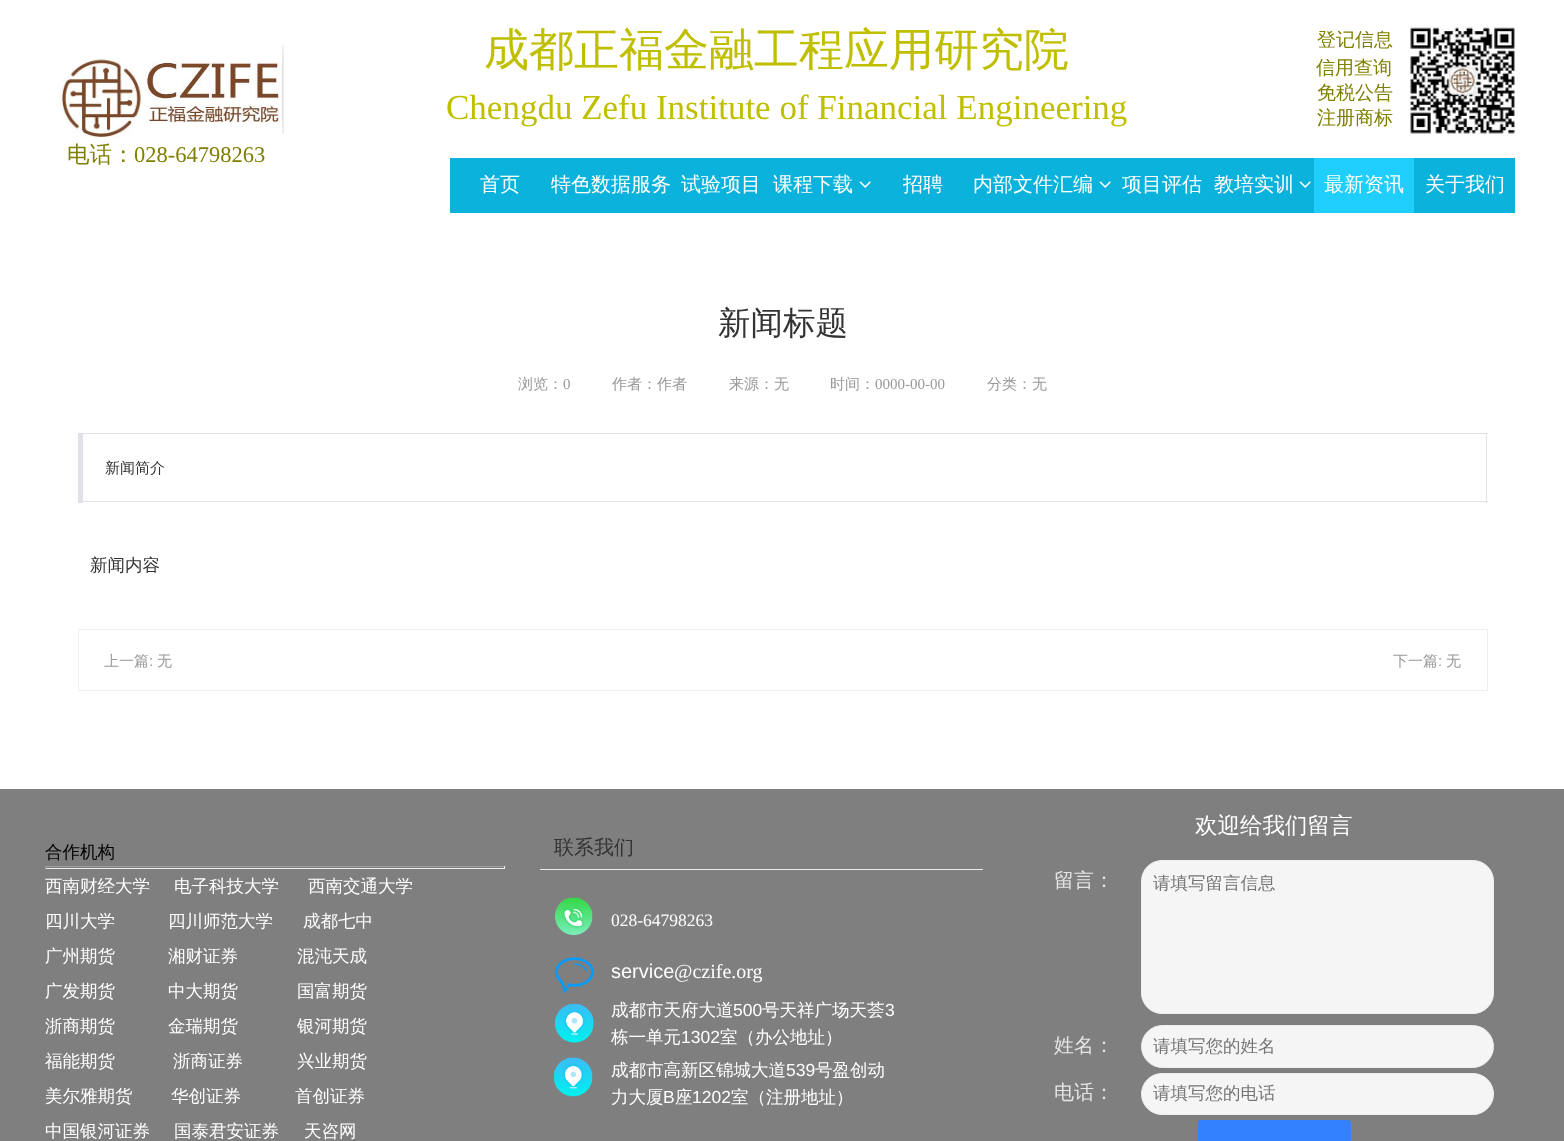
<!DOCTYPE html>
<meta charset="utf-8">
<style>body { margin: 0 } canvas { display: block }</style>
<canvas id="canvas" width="1564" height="1141"></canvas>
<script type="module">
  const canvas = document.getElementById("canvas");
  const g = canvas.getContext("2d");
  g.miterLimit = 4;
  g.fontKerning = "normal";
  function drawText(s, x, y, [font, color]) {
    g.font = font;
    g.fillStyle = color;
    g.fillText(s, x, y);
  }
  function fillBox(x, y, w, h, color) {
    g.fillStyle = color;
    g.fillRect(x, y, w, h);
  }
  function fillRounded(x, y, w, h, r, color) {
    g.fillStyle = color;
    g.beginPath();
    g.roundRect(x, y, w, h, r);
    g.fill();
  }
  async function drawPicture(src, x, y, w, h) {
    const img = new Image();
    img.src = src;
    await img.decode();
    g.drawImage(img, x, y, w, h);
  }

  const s1 = ["500 45px WenQuanYi Zen Hei", "#BFBF00"];
  const s2 = ["500 19px WenQuanYi Zen Hei", "#7F7F00"];
  const s3 = ["35px Liberation Serif", "#BFBF00"];
  const s4 = ["500 22.5px WenQuanYi Zen Hei", "#7F7F00"];
  const s5 = ["22.5px Liberation Serif", "#7F7F00"];
  const s6 = ["500 20px WenQuanYi Zen Hei", "#FFFFFF"];
  const s7 = ["500 32.5px WenQuanYi Zen Hei", "#333333"];
  const s8 = ["500 15px WenQuanYi Zen Hei", "#999999"];
  const s9 = ["15px Liberation Serif", "#999999"];
  const s10 = ["500 15px WenQuanYi Zen Hei", "#333333"];
  const s11 = ["500 17.5px WenQuanYi Zen Hei", "#333333"];
  const s12 = ["15px Liberation Sans", "#999999"];
  const s13 = ["500 17.5px WenQuanYi Zen Hei", "#000000"];
  const s14 = ["500 17.5px WenQuanYi Zen Hei", "#FFFFFF"];
  const s15 = ["500 20px WenQuanYi Zen Hei", "#333333"];
  const s16 = ["500 22.5px WenQuanYi Zen Hei", "#FFFFFF"];
  const s17 = ["500 20px WenQuanYi Zen Hei", "#E5E5E5"];
  const s18 = ["500 17.5px WenQuanYi Zen Hei", "#757575"];
  const s19 = ["17.5px Liberation Serif", "#FFFFFF"];
  const s20 = ["20px Liberation Sans", "#FFFFFF"];
  const s21 = ["20px Liberation Serif", "#FFFFFF"];
  const s22 = ["17.5px Liberation Sans", "#FFFFFF"];

  fillBox(0, 0, 1564, 1141, "#FFFFFF");
  drawText("成都正福金融工程应用研究院", 484, 65, s1);
  drawText("登记信息", 1317, 46, s2);
  await drawPicture("pic1.png", 1408, 26, 107, 108);
  await drawPicture("pic2.png", 60, 58, 82, 80);
  await drawPicture("pic3.png", 142, 45, 142, 89);
  drawText("信用查询", 1316, 74, s2);
  drawText("Chengdu Zefu Institute of Financial Engineering", 446, 119, s3);
  drawText("免税公告", 1317, 99, s2);
  drawText("注册商标", 1317, 124, s2);
  drawText("电话：", 67, 162, s4);
  drawText("028-64798263", 134, 162, s5);
  fillBox(450, 158, 864, 55, "#0BB2DC");
  drawText("首页", 480, 191, s6);
  drawText("特色数据服务", 551, 191, s6);
  drawText("试验项目", 681, 191, s6);
  drawText("课程下载", 773, 191, s6);
  await drawPicture("pic4.png", 859, 181, 12, 7);
  drawText("招聘", 903, 191, s6);
  drawText("内部文件汇编", 973, 191, s6);
  await drawPicture("pic4.png", 1099, 181, 12, 7);
  drawText("项目评估", 1122, 191, s6);
  drawText("教培实训", 1214, 191, s6);
  await drawPicture("pic4.png", 1299, 181, 12, 7);
  fillBox(1314, 158, 100, 55, "#1FCEFB");
  drawText("最新资讯", 1324, 191, s6);
  fillBox(1414, 158, 101, 55, "#0BB2DC");
  drawText("关于我们", 1425, 191, s6);
  drawText("新闻标题", 718, 334, s7);
  drawText("浏览：", 518, 389, s8);
  drawText("0", 563, 389, s9);
  drawText("作者：作者", 612, 389, s8);
  drawText("来源：无", 729, 389, s8);
  drawText("时间：", 830, 389, s8);
  drawText("0000-00-00", 875, 389, s9);
  drawText("分类：无", 987, 389, s8);
  fillBox(78, 433, 1410, 1, "#E1E1E7");
  fillBox(1486, 433, 1, 70, "#E1E1E7");
  fillBox(78, 501, 1410, 1, "#E1E1E7");
  fillBox(78, 433, 5, 70, "#E1E1E7");
  drawText("新闻简介", 105, 473, s10);
  drawText("新闻内容", 90, 571, s11);
  g.strokeStyle = "#EFEFEF";
  g.strokeRect(78.5, 629.5, 1409, 61);
  drawText("上一篇", 104, 666, s8);
  drawText(":", 149, 666, s12);
  drawText("无", 157, 666, s8);
  drawText("下一篇", 1393, 666, s8);
  drawText(":", 1438, 666, s12);
  drawText("无", 1446, 666, s8);
  fillBox(0, 789, 1564, 352, "#7F7F7F");
  drawText("合作机构", 45, 858, s13);
  fillBox(45, 866, 460, 1, "#9F9F9F");
  fillBox(504, 866, 1, 3, "#EEEEEE");
  fillBox(45, 868, 460, 1, "#EEEEEE");
  fillBox(45, 866, 1, 3, "#9F9F9F");
  drawText("西南财经大学", 45, 892, s14);
  drawText("电子科技大学", 174, 892, s14);
  drawText("西南交通大学", 308, 892, s14);
  drawText("四川大学", 45, 927, s14);
  drawText("四川师范大学", 168, 927, s14);
  drawText("成都七中", 303, 927, s14);
  drawText("广州期货", 45, 962, s14);
  drawText("湘财证券", 168, 962, s14);
  drawText("混沌天成", 297, 962, s14);
  drawText("广发期货", 45, 997, s14);
  drawText("中大期货", 168, 997, s14);
  drawText("国富期货", 297, 997, s14);
  drawText("浙商期货", 45, 1032, s14);
  drawText("金瑞期货", 168, 1032, s14);
  drawText("银河期货", 297, 1032, s14);
  drawText("福能期货", 45, 1067, s14);
  drawText("浙商证券", 173, 1067, s14);
  drawText("兴业期货", 297, 1067, s14);
  drawText("美尔雅期货", 45, 1102, s14);
  drawText("华创证券", 171, 1102, s14);
  drawText("首创证券", 295, 1102, s14);
  drawText("中国银河证券", 45, 1137, s14);
  drawText("国泰君安证券", 174, 1137, s14);
  drawText("天咨网", 304, 1137, s14);
  drawText("联系我们", 554, 854, s15);
  drawText("欢迎给我们留言", 1195, 833, s16);
  drawText("留言：", 1054, 887, s17);
  g.fillStyle = "#F5F5F5";
  g.beginPath();
  g.roundRect(1141.5, 860.5, 352, 153, 20.5);
  g.fill();
  g.strokeStyle = "#EEEEEE";
  g.stroke();
  drawText("请填写留言信息", 1153, 889, s18);
  drawText("姓名：", 1054, 1052, s17);
  g.fillStyle = "#F5F5F5";
  g.beginPath();
  g.roundRect(1141.5, 1025.5, 352, 42, 21);
  g.fill();
  g.stroke();
  drawText("请填写您的姓名", 1153, 1052, s18);
  drawText("电话：", 1054, 1099, s17);
  g.fillStyle = "#F5F5F5";
  g.beginPath();
  g.roundRect(1141.5, 1073.5, 352, 41, 20.5);
  g.fill();
  g.stroke();
  drawText("请填写您的电话", 1153, 1099, s18);
  fillRounded(1198, 1120, 153, 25, 4, "#3381FF");
  fillBox(540, 869, 443, 1, "#EAEAEA");
  await drawPicture("pic5.png", 555, 897, 38, 38);
  drawText("028-64798263", 611, 926, s19);
  await drawPicture("pic6.png", 555, 957, 39, 36);
  drawText("service", 611, 978, s20);
  drawText("@czife.org", 674, 978, s21);
  await drawPicture("pic7.png", 555, 1003, 39, 40);
  drawText("成都市天府大道", 611, 1016, s14);
  drawText("500", 733, 1016, s22);
  drawText("号天祥广场天荟", 762, 1016, s14);
  drawText("3", 885, 1016, s22);
  drawText("栋一单元", 611, 1043, s14);
  drawText("1302", 681, 1043, s22);
  drawText("室（办公地址）", 720, 1043, s14);
  await drawPicture("pic8.png", 553, 1057, 40, 40);
  drawText("成都市高新区锦城大道", 611, 1076, s14);
  drawText("539", 786, 1076, s22);
  drawText("号盈创动", 815, 1076, s14);
  drawText("力大厦", 611, 1103, s14);
  drawText("B", 663, 1103, s22);
  drawText("座", 675, 1103, s14);
  drawText("1202", 692, 1103, s22);
  drawText("室（注册地址）", 731, 1103, s14);
</script>
